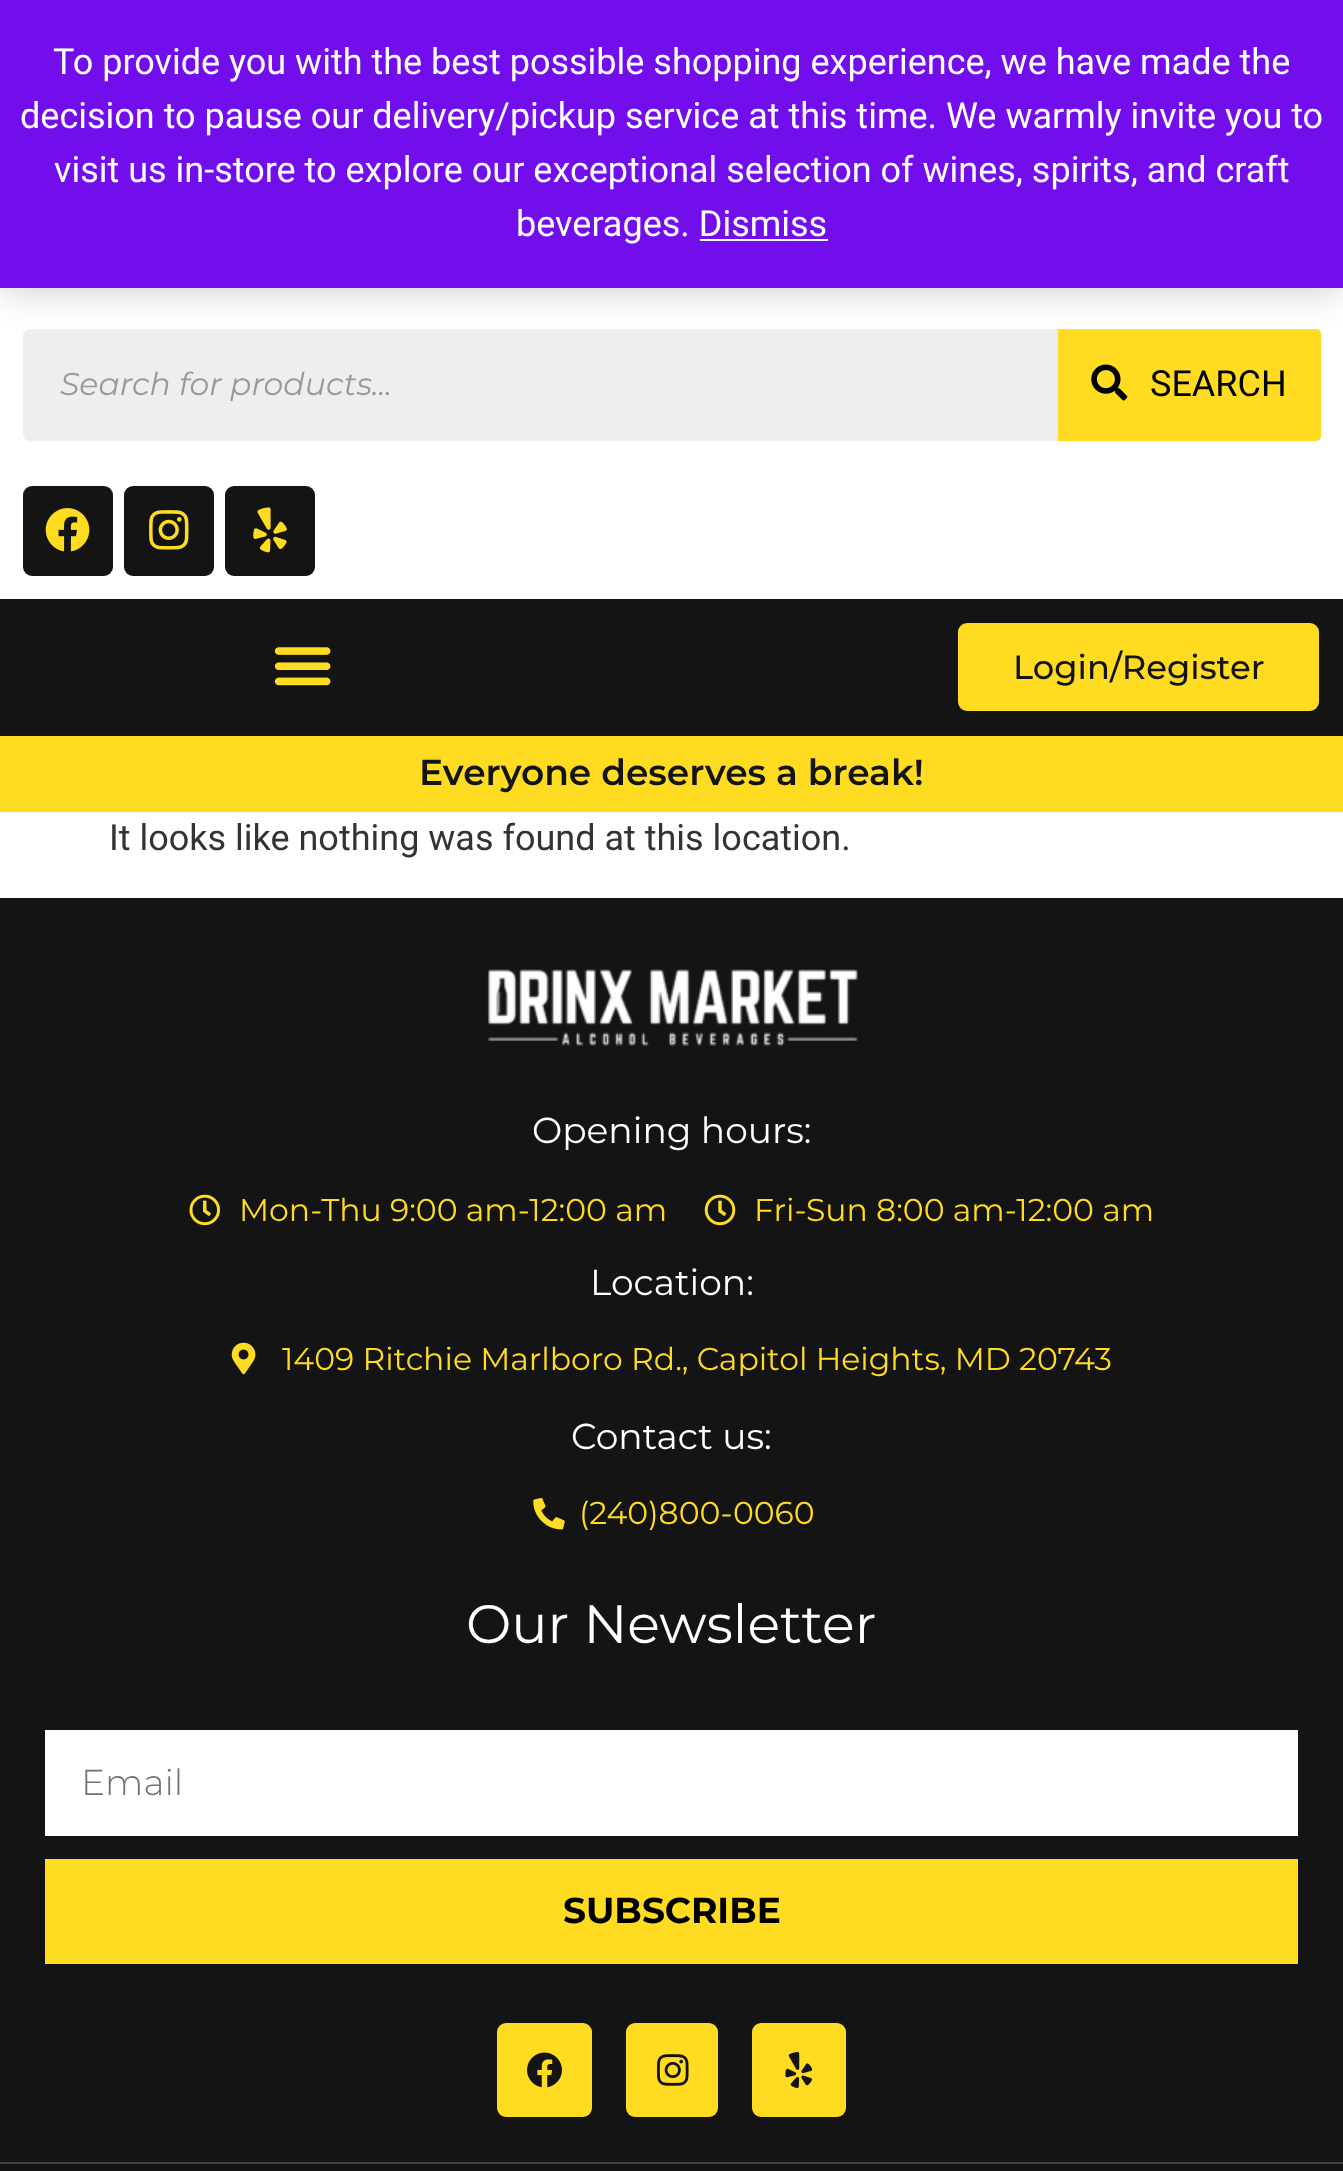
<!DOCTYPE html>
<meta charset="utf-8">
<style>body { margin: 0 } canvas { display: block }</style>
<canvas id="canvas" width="1343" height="2171"></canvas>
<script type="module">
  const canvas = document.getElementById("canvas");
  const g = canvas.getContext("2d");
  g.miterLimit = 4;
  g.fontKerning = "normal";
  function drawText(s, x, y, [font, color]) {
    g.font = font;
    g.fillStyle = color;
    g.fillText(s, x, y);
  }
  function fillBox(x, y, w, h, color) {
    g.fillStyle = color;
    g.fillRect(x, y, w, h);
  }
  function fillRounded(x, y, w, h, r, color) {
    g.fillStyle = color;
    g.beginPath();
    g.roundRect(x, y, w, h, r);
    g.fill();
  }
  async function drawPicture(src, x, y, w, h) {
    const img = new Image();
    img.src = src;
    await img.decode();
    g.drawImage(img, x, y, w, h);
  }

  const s1 = ["36px Roboto", "#FFFFFF"];
  const s2 = ["italic 31.5px Montserrat", "#999999"];
  const s3 = ["36px Roboto", "#000000"];
  const s4 = ["500 33.75px Montserrat", "#141414"];
  const s5 = ["600 36px Montserrat", "#141414"];
  const s6 = ["36px Roboto", "#333333"];
  const s7 = ["100 36px Montserrat", "#FFFFFF"];
  const s8 = ["100 31.5px Montserrat", "#FFDC22"];
  const s9 = ["100 54px Montserrat", "#FFFFFF"];
  const s10 = ["300 36px Montserrat", "#727272"];
  const s11 = ["bold 36px Montserrat", "#000000"];

  fillBox(0, 0, 1343, 2171, "#FFFFFF");
  fillRounded(23, 329, 1298, 112, 7, "#ECEEEF");
  g.fillStyle = "#FFDC22";
  g.beginPath();
  g.roundRect(1058, 329, 263, 112, [0, 5, 5, 0]);
  g.fill();
  g.fillStyle = "rgba(0, 0, 0, 0.2)";
  g.filter = "blur(18px)";
  g.beginPath();
  g.rect(0, 2, 1343, 288);
  g.fill();
  g.filter = "none";
  fillBox(0, 0, 1343, 288, "#720EEC");
  drawText("To provide you with the best possible shopping experience, we have made the", 53, 74, s1);
  drawText("decision to pause our delivery/pickup service at this time. We warmly invite you to", 20, 128, s1);
  drawText("visit us in-store to explore our exceptional selection of wines, spirits, and craft", 54, 182, s1);
  drawText("beverages. Dismiss", 516, 236, s1);
  fillBox(700, 239, 128, 2, "#FCFBFE");
  drawText("Search for products...", 60, 395, s2);
  await drawPicture("pic1.png", 1091, 364, 37, 37);
  drawText("SEARCH", 1150, 396, s3);
  fillRounded(23, 486, 90, 90, 9, "#141414");
  await drawPicture("pic2.png", 45, 508, 45, 44);
  fillRounded(124, 486, 90, 90, 9, "#141414");
  await drawPicture("pic3.png", 149, 510, 40, 40);
  fillRounded(225, 486, 90, 90, 9, "#141414");
  await drawPicture("pic4.png", 253, 507, 34, 46);
  fillBox(0, 599, 1343, 137, "#141414");
  await drawPicture("pic5.png", 274, 647, 57, 39);
  g.fillStyle = "#FFDC22";
  g.beginPath();
  g.roundRect(957, 622, 363, 90, 10);
  g.fill();
  g.strokeStyle = "#141414";
  g.lineWidth = 2;
  g.stroke();
  drawText("Login/Register", 1013, 679, s4);
  fillBox(0, 736, 1343, 76, "#FFDC22");
  drawText("Everyone deserves a break!", 419, 785, s5);
  drawText("It looks like nothing was found at this location.", 109, 850, s6);
  fillBox(0, 898, 1343, 1264, "#141414");
  await drawPicture("pic6.png", 487, 969, 371, 77);
  drawText("Opening hours:", 532, 1143, s7);
  await drawPicture("pic7.png", 189, 1194, 31, 32);
  drawText("Mon-Thu 9:00 am-12:00 am", 239, 1221, s8);
  await drawPicture("pic8.png", 704, 1194, 32, 32);
  drawText("Fri-Sun 8:00 am-12:00 am", 754, 1221, s8);
  drawText("Location:", 590, 1295, s7);
  await drawPicture("pic9.png", 231, 1342, 25, 33);
  drawText("1409 Ritchie Marlboro Rd., Capitol Heights, MD 20743", 282, 1370, s8);
  drawText("Contact us:", 571, 1449, s7);
  await drawPicture("pic10.png", 533, 1498, 32, 32);
  drawText("(240)800-0060", 579, 1524, s8);
  drawText("Our Newsletter", 466, 1643, s9);
  fillBox(45, 1730, 1253, 106, "#FFFFFF");
  drawText("Email", 81, 1795, s10);
  fillBox(45, 1859, 1253, 105, "#FFDC22");
  drawText("SUBSCRIBE", 563, 1923, s11);
  fillRounded(497, 2023, 95, 94, 9, "#FFDC22");
  await drawPicture("pic11.png", 527, 2052, 35, 36);
  fillRounded(626, 2023, 92, 94, 9, "#FFDC22");
  await drawPicture("pic12.png", 657, 2054, 32, 32);
  fillRounded(752, 2023, 94, 94, 9, "#FFDC22");
  await drawPicture("pic13.png", 785, 2052, 28, 36);
  fillBox(0, 2164, 1343, 7, "#141414");
  fillBox(0, 2162, 1343, 2, "#434343");
</script>
